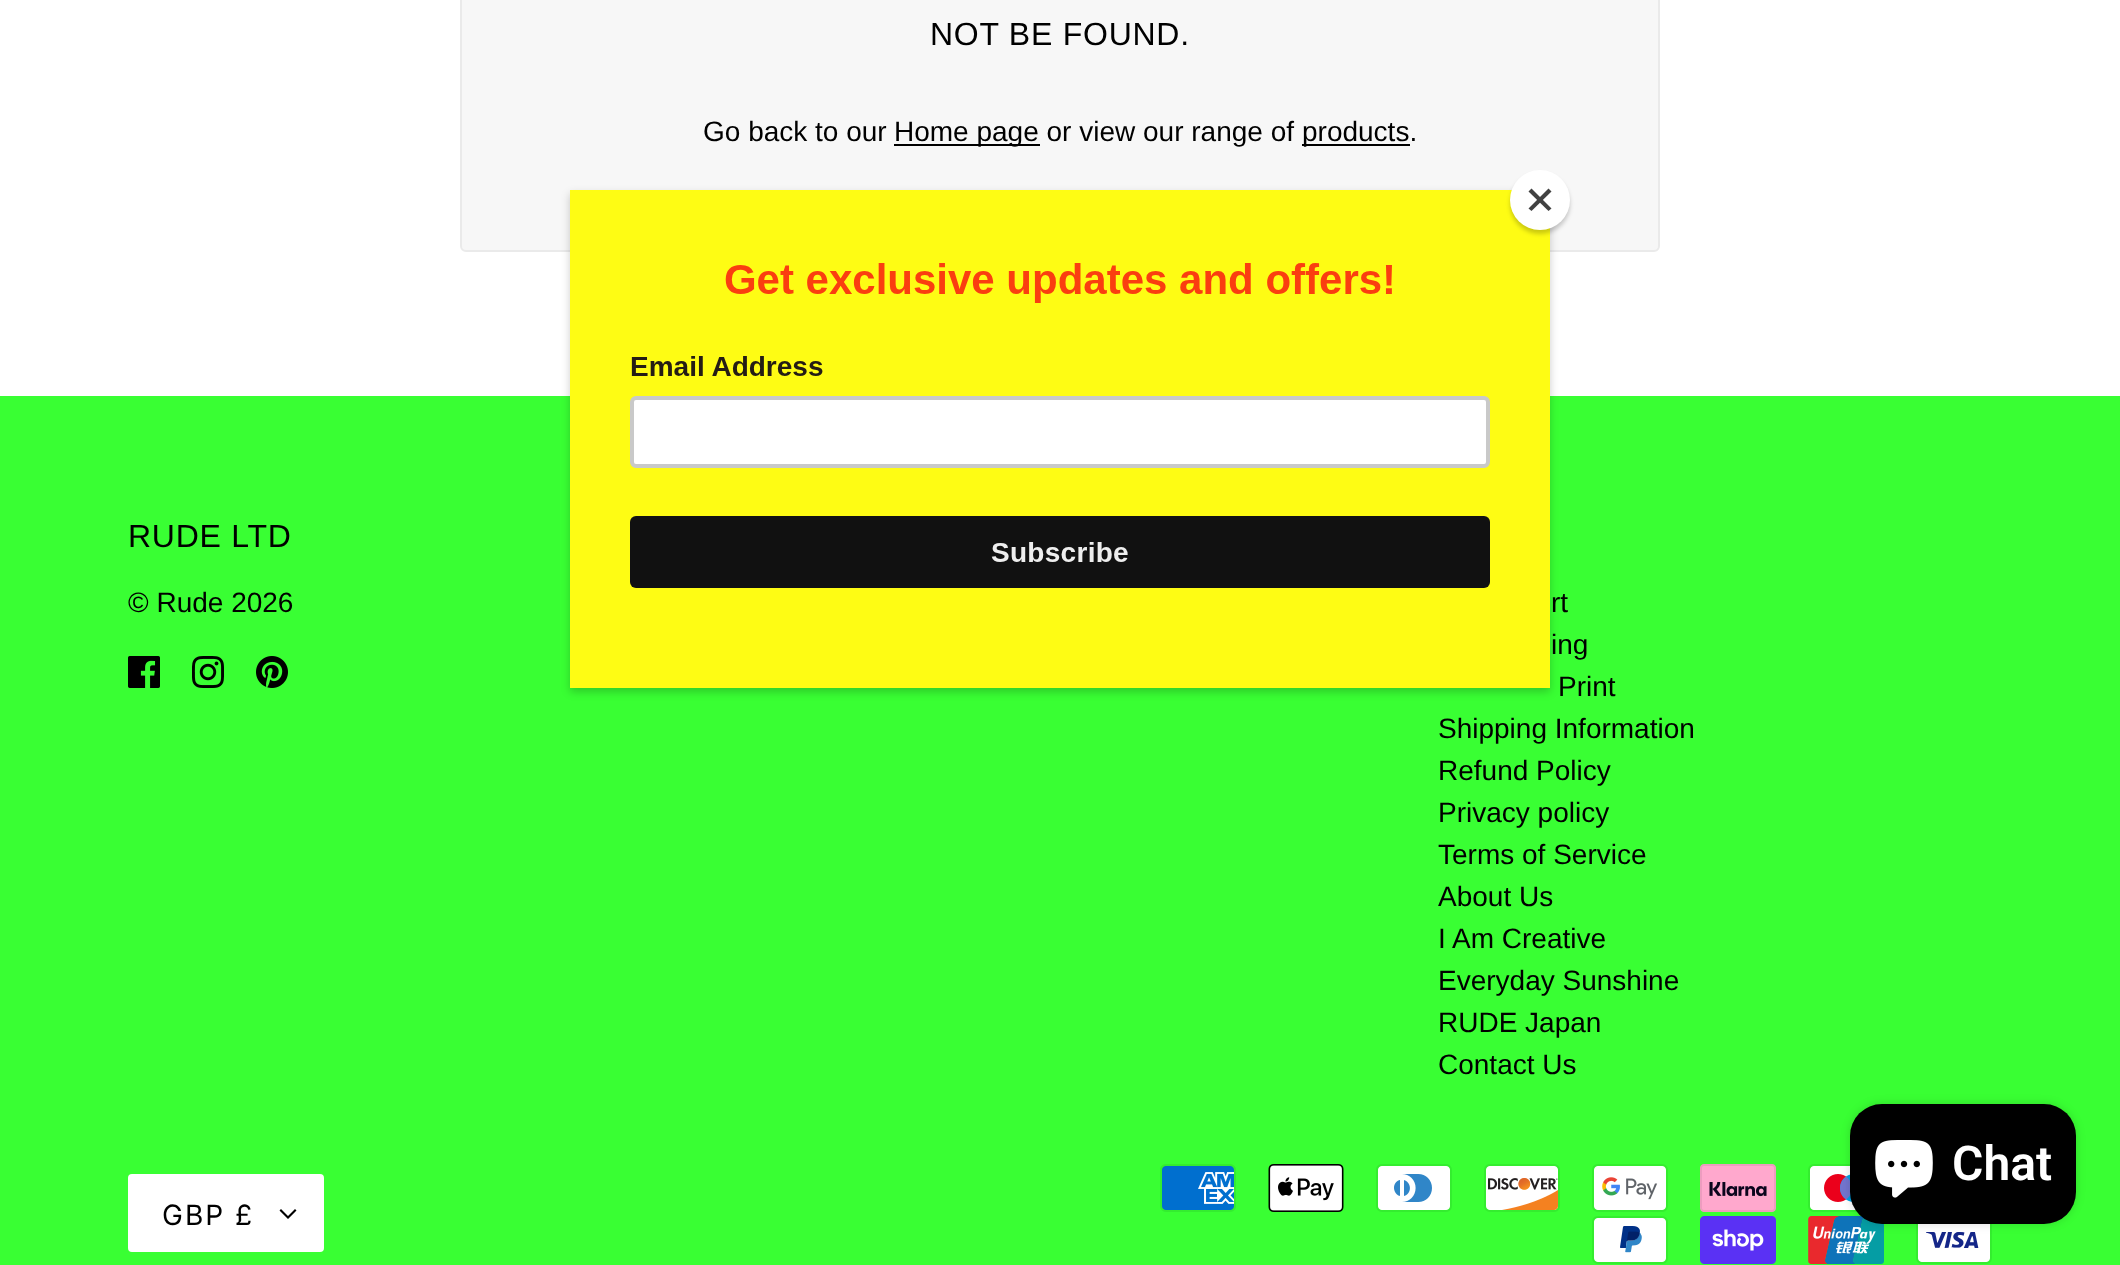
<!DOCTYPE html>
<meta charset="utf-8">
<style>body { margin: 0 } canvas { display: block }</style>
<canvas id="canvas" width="2120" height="1265"></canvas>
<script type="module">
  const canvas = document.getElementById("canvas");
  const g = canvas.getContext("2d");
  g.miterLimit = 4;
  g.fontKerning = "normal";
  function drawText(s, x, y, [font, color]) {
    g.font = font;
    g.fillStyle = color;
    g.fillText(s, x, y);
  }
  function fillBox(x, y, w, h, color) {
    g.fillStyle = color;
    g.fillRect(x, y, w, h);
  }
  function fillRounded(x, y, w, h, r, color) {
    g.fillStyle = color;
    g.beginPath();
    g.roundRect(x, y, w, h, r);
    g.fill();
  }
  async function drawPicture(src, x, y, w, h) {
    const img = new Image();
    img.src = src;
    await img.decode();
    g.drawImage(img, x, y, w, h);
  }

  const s1 = ["32px Liberation Sans", "#000000"];
  const s2 = ["28px Liberation Sans", "#000000"];
  const s3 = ["28px Inter", "#000000"];
  const s4 = ["600 48px Roboto", "#FFFFFF"];

  fillBox(0, 0, 2120, 1265, "#FFFFFF");
  g.fillStyle = "#F7F7F7";
  g.beginPath();
  g.roundRect(461, -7, 1198, 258, 5);
  g.fill();
  g.strokeStyle = "#EAEAEA";
  g.lineWidth = 2;
  g.stroke();
  g.letterSpacing = "0.75px";
  drawText("NOT BE FOUND.", 930, 45, s1);
  g.letterSpacing = "0px";
  drawText("Go back to our", 703, 141, s2);
  fillBox(894, 144, 146, 2, "#000000");
  drawText("Home page or view our range of", 894, 141, s2);
  fillBox(1302, 144, 108, 2, "#000000");
  drawText("products.", 1302, 141, s2);
  fillBox(0, 396, 2120, 869, "#39FF33");
  g.letterSpacing = "0.75px";
  drawText("RUDE LTD", 128, 547, s1);
  g.letterSpacing = "0px";
  drawText("© Rude 2026", 128, 612, s2);
  await drawPicture("pic1.png", 128, 656, 32, 32);
  await drawPicture("pic2.png", 192, 656, 32, 32);
  await drawPicture("pic3.png", 256, 656, 32, 32);
  drawText("rt", 1551, 612, s2);
  drawText("ing", 1551, 654, s2);
  drawText("Print", 1558, 696, s2);
  drawText("Shipping Information", 1438, 738, s2);
  drawText("Refund Policy", 1438, 780, s2);
  drawText("Privacy policy", 1438, 822, s2);
  drawText("Terms of Service", 1438, 864, s2);
  drawText("About Us", 1438, 906, s2);
  drawText("I Am Creative", 1438, 948, s2);
  drawText("Everyday Sunshine", 1438, 990, s2);
  drawText("RUDE Japan", 1438, 1032, s2);
  drawText("Contact Us", 1438, 1074, s2);
  g.fillStyle = "#FFFFFF";
  g.beginPath();
  g.roundRect(129, 1175, 194, 76, 3);
  g.fill();
  g.strokeStyle = "#FFFFFF";
  g.stroke();
  g.letterSpacing = "2px";
  drawText("GBP £", 162, 1225, s3);
  g.beginPath();
  g.moveTo(288, 1216);
  g.lineTo(295, 1209);
  g.lineTo(296.5, 1210.5);
  g.lineTo(288, 1219);
  g.lineTo(279.5, 1210.5);
  g.lineTo(281, 1209);
  g.closePath();
  g.fill();
  await drawPicture("pic4.png", 1160, 1164, 76, 48);
  await drawPicture("pic5.png", 1268, 1164, 76, 48);
  await drawPicture("pic6.png", 1376, 1164, 76, 48);
  await drawPicture("pic7.png", 1484, 1164, 76, 48);
  await drawPicture("pic8.png", 1592, 1164, 76, 48);
  await drawPicture("pic9.png", 1700, 1164, 76, 48);
  await drawPicture("pic10.png", 1808, 1164, 49, 48);
  await drawPicture("pic11.png", 1592, 1216, 76, 48);
  await drawPicture("pic12.png", 1700, 1216, 76, 48);
  await drawPicture("pic13.png", 1808, 1216, 76, 48);
  await drawPicture("pic14.png", 1916, 1224, 76, 40);
  g.fillStyle = "rgba(0, 0, 0, 0.2)";
  g.filter = "blur(4px)";
  g.beginPath();
  g.rect(570, 194, 980, 498);
  g.fill();
  g.filter = "none";
  await drawPicture("pic15.png", 570, 190, 980, 498);
  g.filter = "blur(2px)";
  g.beginPath();
  g.roundRect(1510, 174, 60, 60, 30);
  g.fill();
  g.filter = "none";
  g.fillStyle = "#FFFFFF";
  g.beginPath();
  g.arc(1540, 200, 30, 0, Math.PI * 2);
  g.fill();
  g.fillStyle = "#414141";
  g.beginPath();
  g.moveTo(1548.5, 188.5);
  g.lineTo(1551.5, 191.5);
  g.lineTo(1531.5, 211);
  g.lineTo(1528.5, 208.5);
  g.closePath();
  g.fill();
  g.beginPath();
  g.moveTo(1528.5, 191.5);
  g.lineTo(1531.5, 188.5);
  g.lineTo(1551.5, 208.5);
  g.lineTo(1548.5, 211);
  g.closePath();
  g.fill();
  g.fillStyle = "rgba(0, 0, 0, 0.15)";
  g.filter = "blur(5px)";
  g.beginPath();
  g.roundRect(1850, 1104, 226, 120, 32);
  g.fill();
  g.filter = "none";
  fillRounded(1850, 1104, 226, 120, 32, "#000000");
  await drawPicture("pic16.png", 1875, 1140, 58, 58);
  g.letterSpacing = "0px";
  drawText("Chat", 1952, 1180, s4);
</script>
